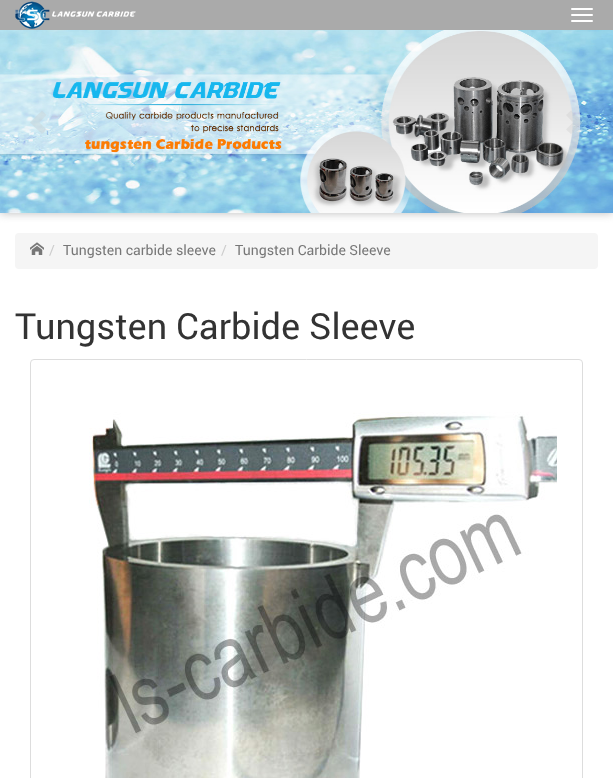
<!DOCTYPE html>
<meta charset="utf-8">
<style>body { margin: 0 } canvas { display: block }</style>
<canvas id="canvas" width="613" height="778"></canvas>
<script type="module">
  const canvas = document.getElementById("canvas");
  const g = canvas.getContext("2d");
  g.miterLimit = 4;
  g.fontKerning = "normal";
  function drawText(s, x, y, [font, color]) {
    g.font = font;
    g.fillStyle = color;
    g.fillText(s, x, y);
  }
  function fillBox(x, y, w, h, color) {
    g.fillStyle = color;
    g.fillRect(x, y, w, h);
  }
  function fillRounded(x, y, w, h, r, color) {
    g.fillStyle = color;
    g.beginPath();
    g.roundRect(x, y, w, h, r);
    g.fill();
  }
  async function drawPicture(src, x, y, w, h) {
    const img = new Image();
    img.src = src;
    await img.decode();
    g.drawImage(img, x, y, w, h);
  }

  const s1 = ["14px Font", "#CCCCCC"];
  const s2 = ["14px Font", "#777777"];
  const s3 = ["36px Font", "#333333"];

  fillBox(0, 0, 613, 778, "#FFFFFF");
  g.fillStyle = "#BBBBBB";
  g.filter = "blur(5px)";
  g.beginPath();
  g.rect(0, 0, 613, 213);
  g.fill();
  g.filter = "none";
  fillBox(0, 0, 613, 30, "#AAAAAA");
  await drawPicture("pic1.png", 15, 1, 121, 28);
  fillRounded(571, 8, 22, 2, 1, "#FFFFFF");
  fillRounded(571, 14, 22, 2, 1, "#FFFFFF");
  fillRounded(571, 20, 22, 2, 1, "#FFFFFF");
  await drawPicture("pic2.png", 0, 30, 613, 183);
  g.fillStyle = "rgba(200, 200, 200, 0.3)";
  g.beginPath();
  g.moveTo(46.5, 115);
  g.lineTo(42, 110.5);
  g.lineTo(30, 122.5);
  g.lineTo(42, 134);
  g.lineTo(46.5, 129.5);
  g.lineTo(39.5, 122.5);
  g.closePath();
  g.fill();
  g.beginPath();
  g.moveTo(571, 110.5);
  g.lineTo(566, 115);
  g.lineTo(573, 122.5);
  g.lineTo(566, 129.5);
  g.lineTo(571, 134);
  g.lineTo(582.5, 122.5);
  g.closePath();
  g.fill();
  fillRounded(15, 233, 583, 36, 4, "#F5F5F5");
  await drawPicture("pic3.png", 30, 242, 14, 13);
  drawText("/", 49, 255, s1);
  drawText("Tungsten carbide sleeve", 63, 255, s2);
  drawText("/", 221, 255, s1);
  drawText("Tungsten Carbide Sleeve", 235, 255, s2);
  drawText("Tungsten Carbide Sleeve", 15, 339, s3);
  g.beginPath();
  g.roundRect(30.5, 359.5, 552, 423, 3.5);
  g.strokeStyle = "#DDDDDD";
  g.stroke();
  await drawPicture("pic4.png", 89, 412, 468, 366);
</script>
